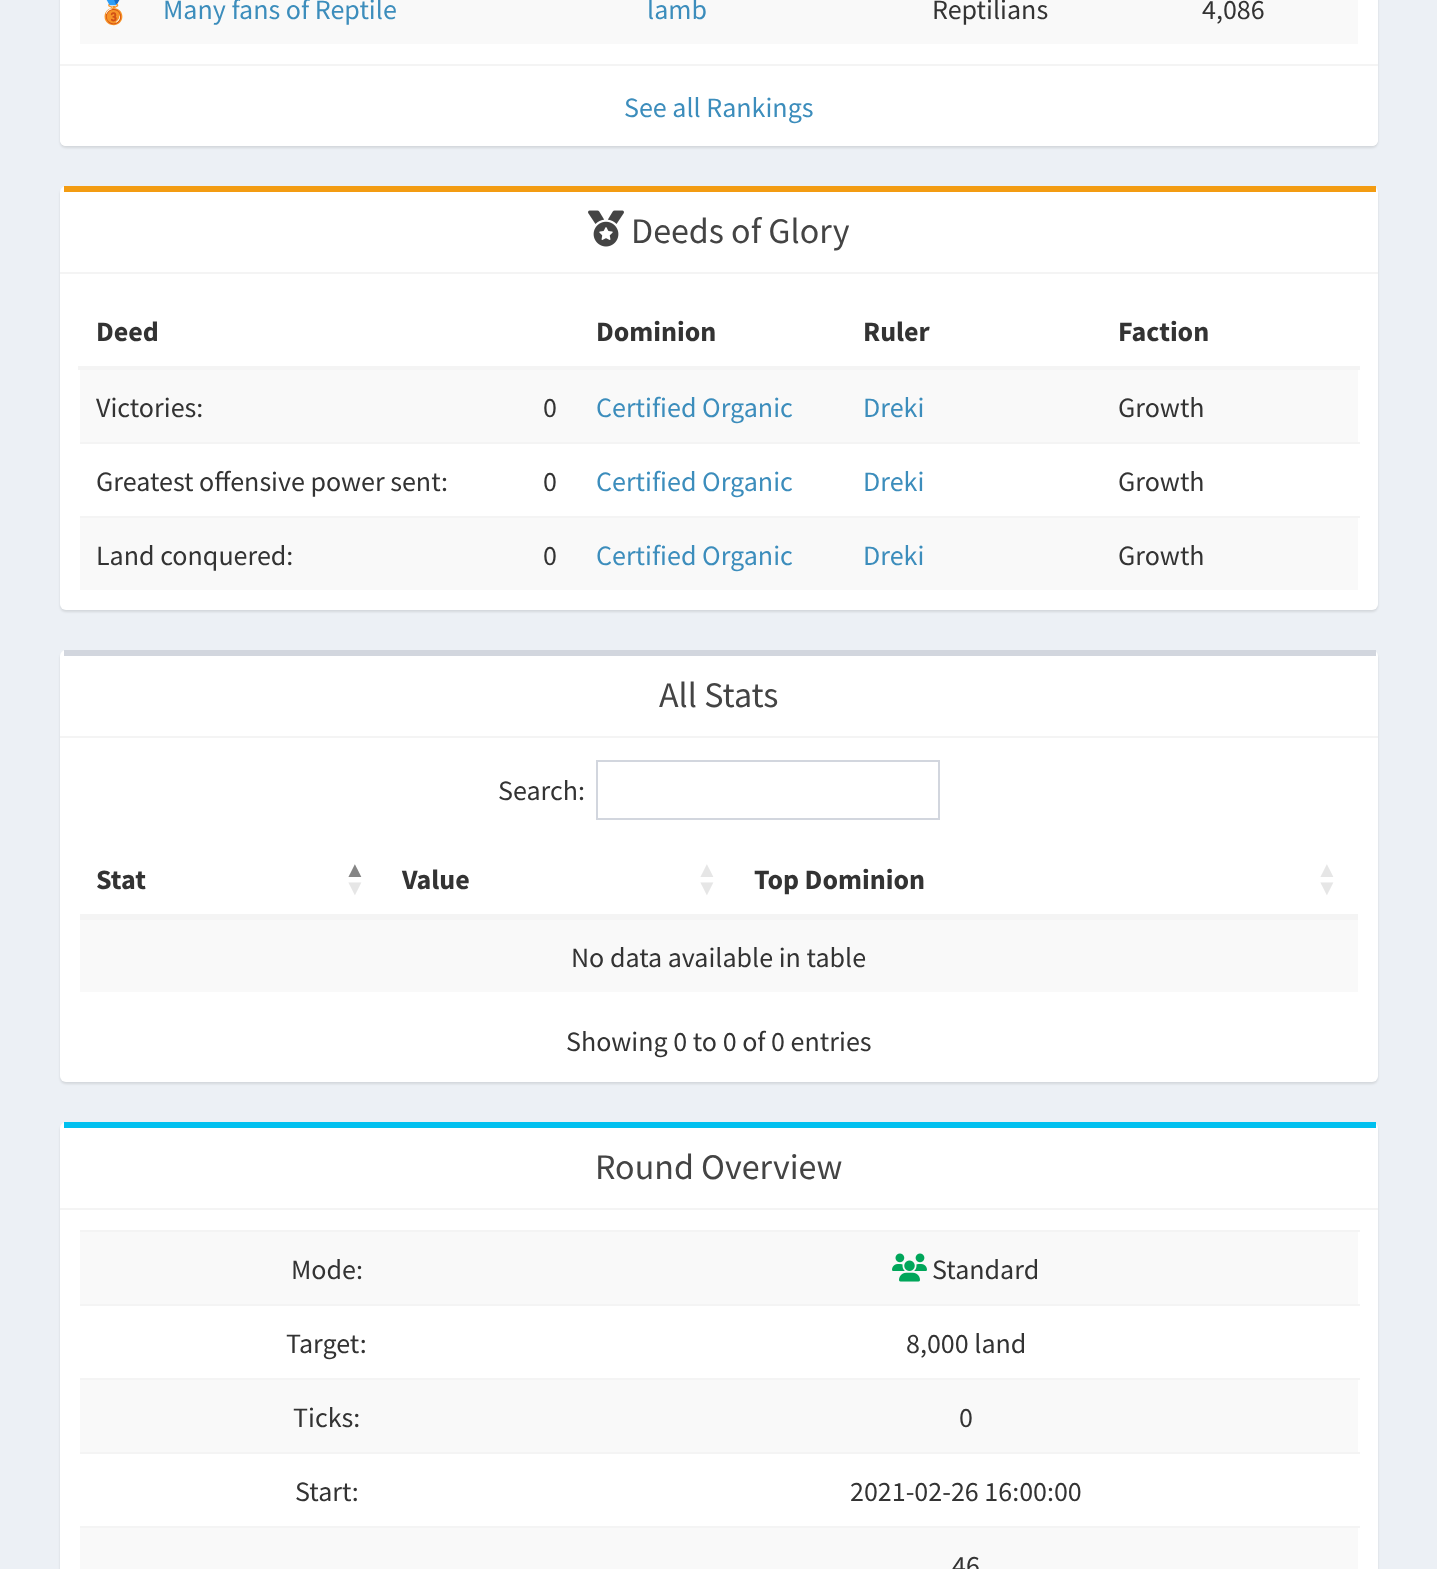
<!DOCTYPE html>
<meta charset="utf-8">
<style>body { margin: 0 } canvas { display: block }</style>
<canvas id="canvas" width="1437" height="1569"></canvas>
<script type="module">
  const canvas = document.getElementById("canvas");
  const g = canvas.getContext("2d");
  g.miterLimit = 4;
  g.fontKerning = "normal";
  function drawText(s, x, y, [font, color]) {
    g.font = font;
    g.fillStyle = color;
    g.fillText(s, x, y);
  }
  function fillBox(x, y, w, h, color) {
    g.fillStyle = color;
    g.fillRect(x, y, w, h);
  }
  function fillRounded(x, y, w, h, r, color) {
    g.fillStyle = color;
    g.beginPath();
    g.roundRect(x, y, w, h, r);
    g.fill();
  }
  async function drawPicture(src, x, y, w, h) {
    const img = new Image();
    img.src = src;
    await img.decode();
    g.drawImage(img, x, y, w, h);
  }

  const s1 = ["28px Noto Color Emoji", "#333333"];
  const s2 = ["28px Source Sans Pro", "#3C8DBC"];
  const s3 = ["28px Source Sans Pro", "#333333"];
  const s4 = ["36px Source Sans Pro", "#444444"];
  const s5 = ["bold 28px Source Sans Pro", "#333333"];
  const s6 = ["bold 22px Liberation Sans", "#858585"];
  const s7 = ["bold 22px Liberation Sans", "#E6E6E6"];

  fillBox(0, 0, 1437, 1569, "#ECF0F5");
  g.fillStyle = "rgba(0, 0, 0, 0.1)";
  g.filter = "blur(1px)";
  g.beginPath();
  g.roundRect(60, -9, 1318, 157, 6);
  g.fill();
  g.filter = "none";
  fillRounded(60, -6, 1318, 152, 6, "#FFFFFF");
  fillBox(80, 0, 1278, 44, "#F9F9F9");
  drawText("🥉", 96, 19, s1);
  drawText("Many fans of Reptile", 163, 19, s2);
  drawText("lamb", 647, 19, s2);
  drawText("Reptilians", 932, 19, s3);
  drawText("4,086", 1202, 19, s3);
  g.fillStyle = "#FFFFFF";
  g.beginPath();
  g.roundRect(60, 64, 1318, 82, [0, 0, 6, 6]);
  g.fill();
  fillBox(60, 64, 1318, 2, "#F4F4F4");
  drawText("See all Rankings", 624, 117, s2);
  g.fillStyle = "rgba(0, 0, 0, 0.1)";
  g.filter = "blur(1px)";
  g.beginPath();
  g.roundRect(60, 188, 1318, 424, 6);
  g.fill();
  g.filter = "none";
  fillRounded(60, 186, 1318, 424, 6, "#FFFFFF");
  fillBox(64, 186, 1312, 6, "#F39C12");
  fillBox(60, 272, 1318, 2, "#F4F4F4");
  await drawPicture("pic1.png", 588, 210, 36, 37);
  drawText("Deeds of Glory", 631, 243, s4);
  drawText("Deed", 96, 341, s5);
  drawText("Dominion", 596, 341, s5);
  drawText("Ruler", 863, 341, s5);
  fillBox(78, 366, 1282, 4, "#F4F4F4");
  drawText("Faction", 1118, 341, s5);
  fillBox(80, 370, 1278, 72, "#F9F9F9");
  drawText("Victories:", 96, 417, s3);
  drawText("0", 543, 417, s3);
  drawText("Certified Organic", 596, 417, s2);
  drawText("Dreki", 863, 417, s2);
  drawText("Growth", 1118, 417, s3);
  drawText("Greatest offensive power sent:", 96, 491, s3);
  drawText("0", 543, 491, s3);
  drawText("Certified Organic", 596, 491, s2);
  drawText("Dreki", 863, 491, s2);
  fillBox(80, 442, 1280, 2, "#F4F4F4");
  drawText("Growth", 1118, 491, s3);
  fillBox(80, 518, 1278, 72, "#F9F9F9");
  drawText("Land conquered:", 96, 565, s3);
  drawText("0", 543, 565, s3);
  drawText("Certified Organic", 596, 565, s2);
  drawText("Dreki", 863, 565, s2);
  fillBox(80, 516, 1280, 2, "#F4F4F4");
  drawText("Growth", 1118, 565, s3);
  g.fillStyle = "rgba(0, 0, 0, 0.1)";
  g.filter = "blur(1px)";
  g.beginPath();
  g.roundRect(60, 652, 1318, 432, 6);
  g.fill();
  g.filter = "none";
  fillRounded(60, 650, 1318, 432, 6, "#FFFFFF");
  fillBox(64, 650, 1312, 6, "#D2D6DE");
  fillBox(60, 736, 1318, 2, "#F4F4F4");
  drawText("All Stats", 659, 707, s4);
  drawText("Search:", 498, 800, s3);
  g.strokeStyle = "#D2D6DE";
  g.lineWidth = 2;
  g.strokeRect(597, 761, 342, 58);
  fillBox(80, 914, 1278, 4, "#F4F4F4");
  drawText("Stat", 96, 889, s5);
  drawText("▲", 344, 877, s6);
  drawText("▼", 344, 895, s7);
  drawText("Value", 402, 889, s5);
  drawText("▲", 696, 877, s7);
  drawText("▼", 696, 895, s7);
  drawText("Top Dominion", 754, 889, s5);
  drawText("▲", 1316, 877, s7);
  drawText("▼", 1316, 895, s7);
  fillBox(80, 920, 1278, 72, "#F9F9F9");
  fillBox(80, 918, 1278, 2, "#F4F4F4");
  drawText("No data available in table", 571, 967, s3);
  drawText("Showing 0 to 0 of 0 entries", 566, 1051, s3);
  g.fillStyle = "rgba(0, 0, 0, 0.1)";
  g.filter = "blur(1px)";
  g.beginPath();
  g.roundRect(60, 1124, 1318, 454, 6);
  g.fill();
  g.filter = "none";
  fillRounded(60, 1122, 1318, 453, 6, "#FFFFFF");
  fillBox(64, 1122, 1312, 6, "#00C0EF");
  fillBox(60, 1208, 1318, 2, "#F4F4F4");
  drawText("Round Overview", 595, 1179, s4);
  fillBox(80, 1232, 1278, 72, "#F9F9F9");
  drawText("Mode:", 291, 1279, s3);
  fillBox(80, 1230, 1280, 2, "#F4F4F4");
  await drawPicture("pic2.png", 892, 1253, 35, 29);
  drawText("Standard", 932, 1279, s3);
  drawText("Target:", 286, 1353, s3);
  fillBox(80, 1304, 1280, 2, "#F4F4F4");
  drawText("8,000 land", 906, 1353, s3);
  fillBox(80, 1380, 1278, 72, "#F9F9F9");
  drawText("Ticks:", 293, 1427, s3);
  fillBox(80, 1378, 1280, 2, "#F4F4F4");
  drawText("0", 959, 1427, s3);
  drawText("Start:", 295, 1501, s3);
  fillBox(80, 1452, 1280, 2, "#F4F4F4");
  drawText("2021-02-26 16:00:00", 850, 1501, s3);
  fillBox(80, 1528, 1278, 41, "#F9F9F9");
  fillBox(80, 1526, 1280, 2, "#F4F4F4");
  drawText("46", 952, 1575, s3);
</script>
